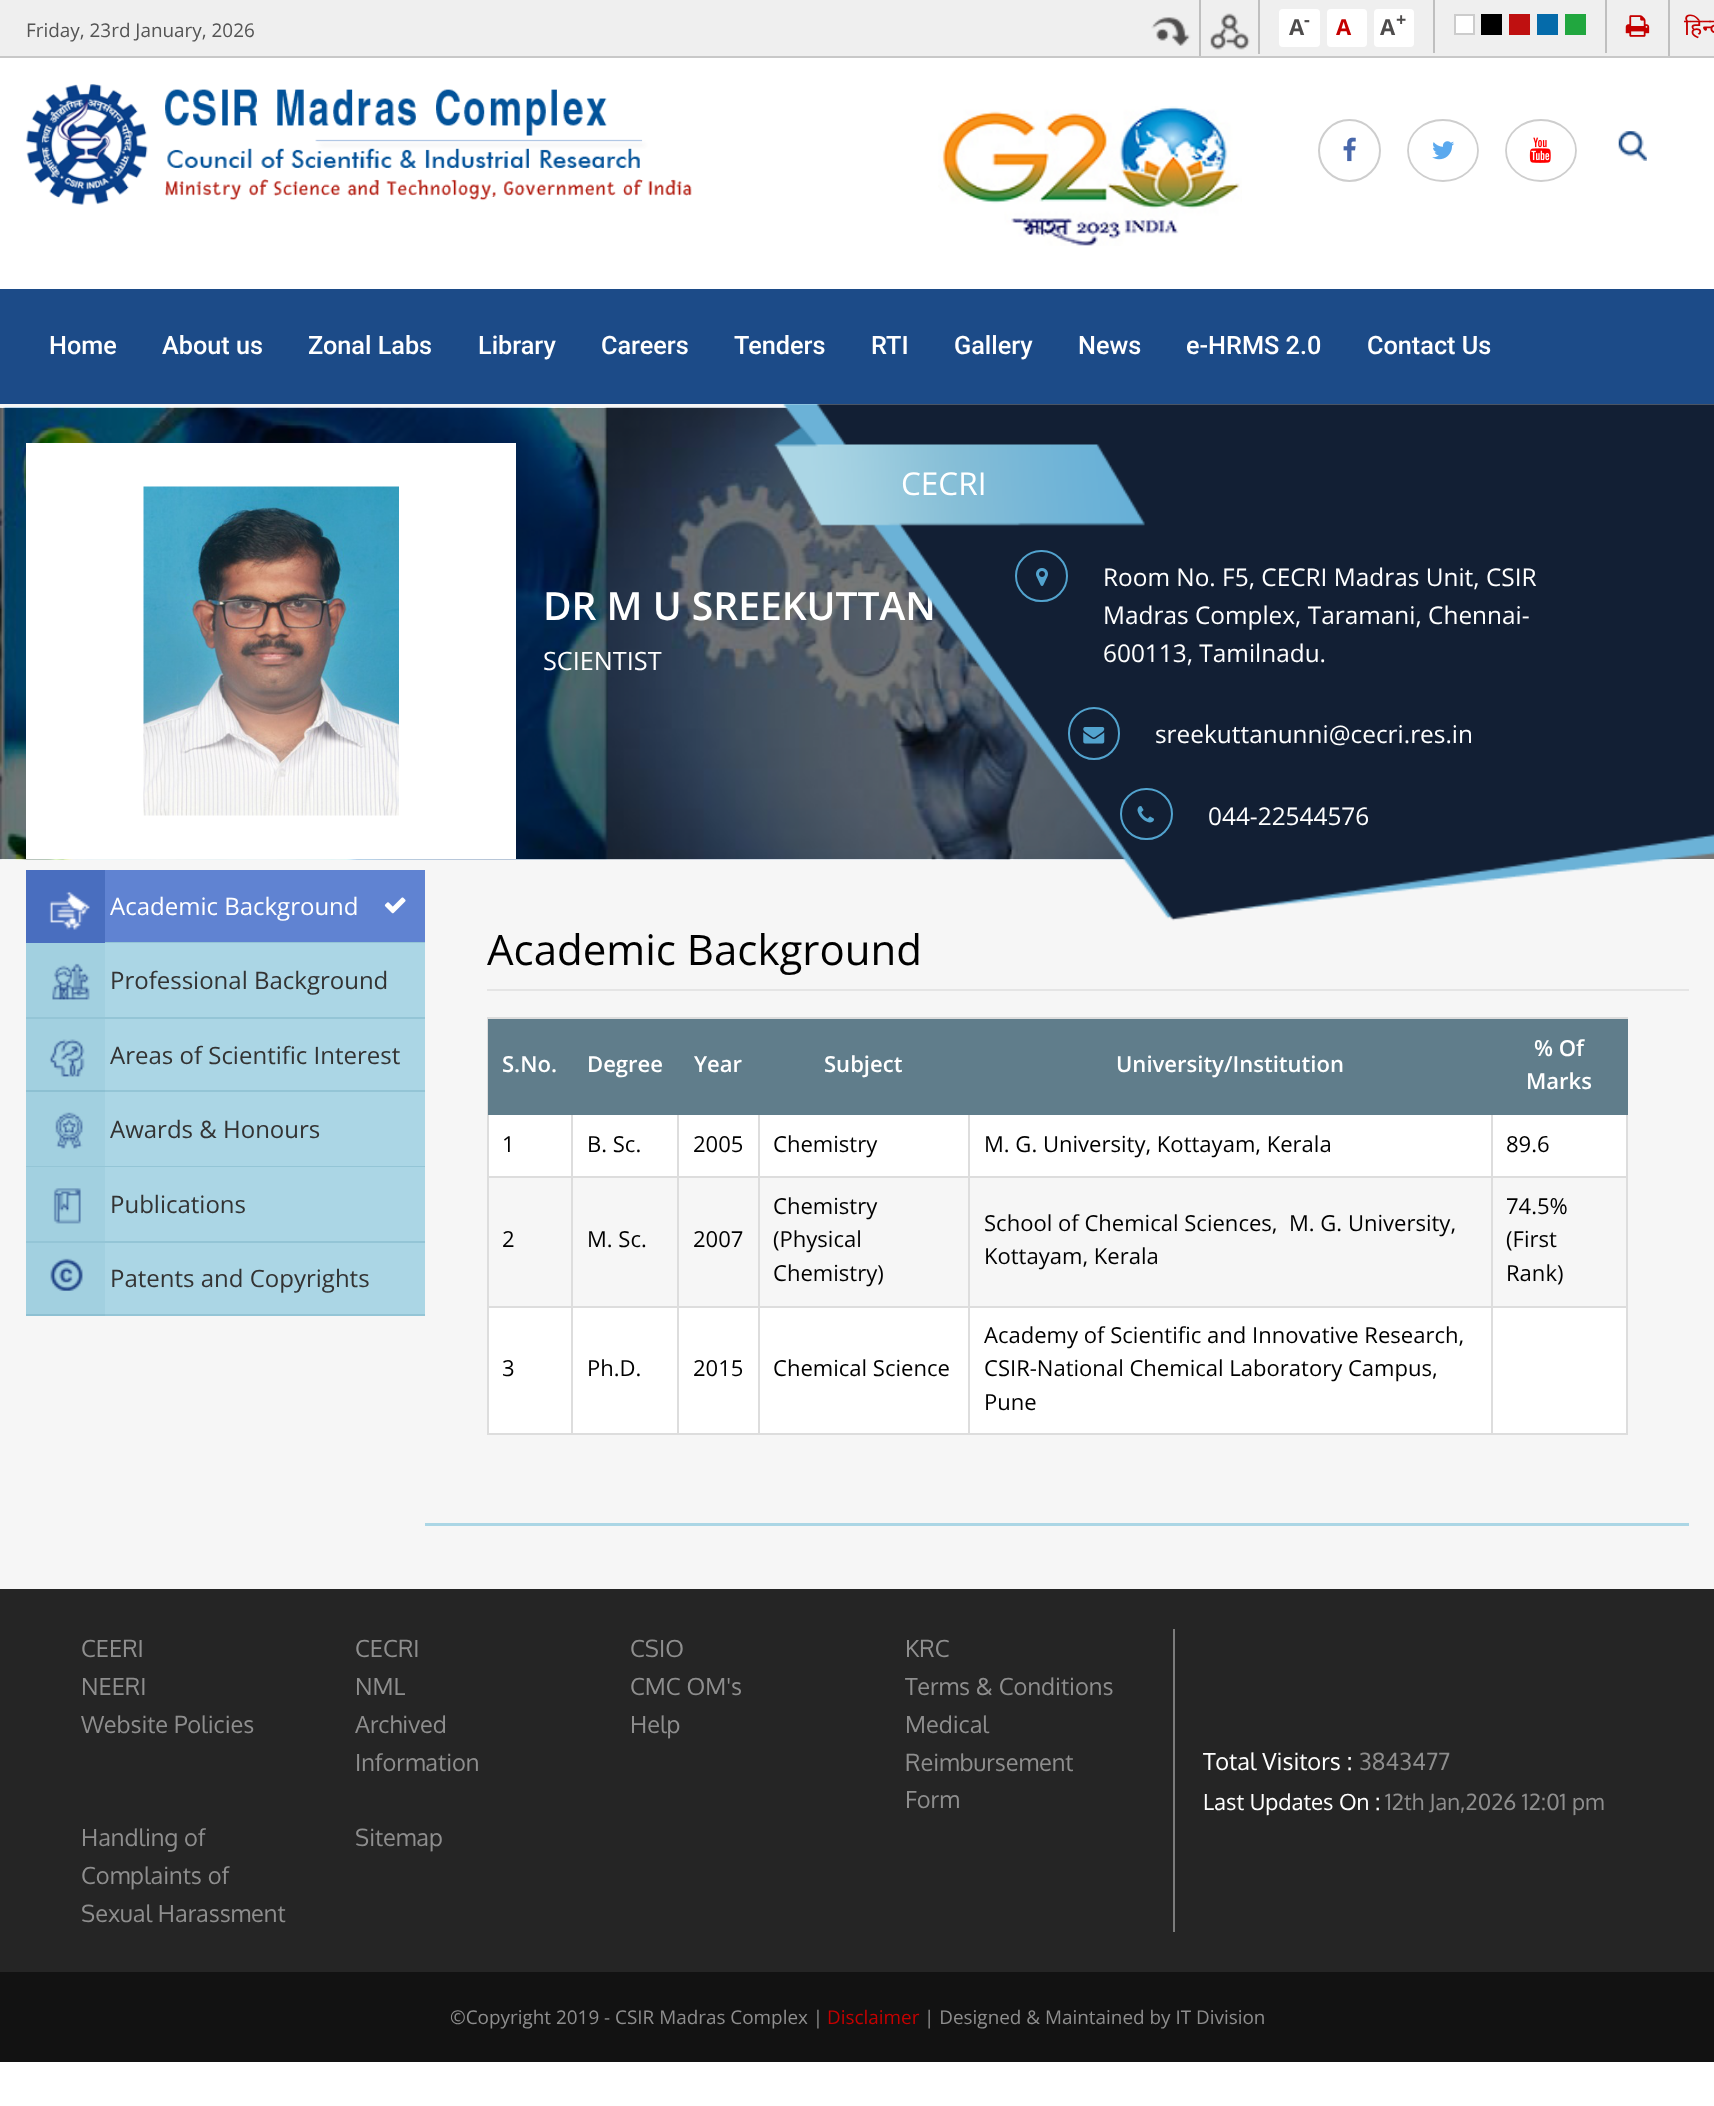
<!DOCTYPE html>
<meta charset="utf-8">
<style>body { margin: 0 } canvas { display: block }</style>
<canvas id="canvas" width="1714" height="2106"></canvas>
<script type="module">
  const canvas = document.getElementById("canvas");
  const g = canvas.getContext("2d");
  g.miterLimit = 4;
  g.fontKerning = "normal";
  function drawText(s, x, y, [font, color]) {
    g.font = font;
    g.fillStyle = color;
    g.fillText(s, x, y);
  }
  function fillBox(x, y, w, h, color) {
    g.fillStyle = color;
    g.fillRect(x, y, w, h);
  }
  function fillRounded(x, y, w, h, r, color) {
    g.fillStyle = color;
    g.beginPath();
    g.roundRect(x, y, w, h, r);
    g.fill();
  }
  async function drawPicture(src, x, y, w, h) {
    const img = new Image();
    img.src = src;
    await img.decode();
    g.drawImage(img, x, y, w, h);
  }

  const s1 = ["18.9px Open Sans", "#545454"];
  const s2 = ["bold 22.05px Open Sans", "#4E4C4C"];
  const s3 = ["bold 18px Open Sans", "#4E4C4C"];
  const s4 = ["bold 22.05px Open Sans", "#C50000"];
  const s5 = ["23px Noto Sans", "#C50000"];
  const s6 = ["500 25.25px Roboto", "#FFFFFF"];
  const s7 = ["600 39px Open Sans", "#FFFFFF"];
  const s8 = ["25.25px Open Sans", "#FFFFFF"];
  const s9 = ["31.5px Open Sans", "#FFFFFF"];
  const s10 = ["24.4px Open Sans", "#FFFFFF"];
  const s11 = ["24px Open Sans", "#FFFFFF"];
  const s12 = ["24px Open Sans", "#333333"];
  const s13 = ["42px Open Sans", "#000000"];
  const s14 = ["600 22.05px Open Sans", "#FFFFFF"];
  const s15 = ["22.05px Open Sans", "#000000"];
  const s16 = ["23.6px Oxygen", "#8E8E8E"];
  const s17 = ["23.6px Oxygen", "#FFFFFF"];
  const s18 = ["22.25px Oxygen", "#FFFFFF"];
  const s19 = ["22.25px Oxygen", "#8E8E8E"];
  const s20 = ["18.9px Open Sans", "#8E8E8E"];
  const s21 = ["18.9px Open Sans", "#C50000"];

  fillBox(0, 0, 1714, 2106, "#FFFFFF");
  fillBox(0, 0, 1714, 56, "#EFEFEF");
  fillBox(0, 56, 1714, 2, "#C8C8C8");
  drawText("Friday, 23rd January, 2026", 26, 37, s1);
  await drawPicture("pic1.png", 1151, 17, 40, 29);
  fillBox(1199, 0, 2, 56, "#BFBFBF");
  await drawPicture("pic2.png", 1210, 13, 40, 37);
  fillBox(1258, 0, 2, 54, "#BFBFBF");
  fillRounded(1279, 9, 41, 38, 4, "#FFFFFF");
  drawText("A", 1289, 35, s2);
  drawText("-", 1304, 26, s3);
  fillRounded(1327, 9, 40, 38, 4, "#FFFFFF");
  drawText("A", 1336, 35, s4);
  fillRounded(1374, 9, 40, 38, 4, "#FFFFFF");
  drawText("A", 1380, 35, s2);
  drawText("+", 1396, 26, s3);
  fillBox(1433, 0, 2, 53, "#BFBFBF");
  g.fillStyle = "#FFFFFF";
  g.beginPath();
  g.rect(1455, 15, 19, 19);
  g.fill();
  g.strokeStyle = "#CCCCCC";
  g.lineWidth = 2;
  g.stroke();
  fillBox(1481, 14, 21, 21, "#000000");
  fillBox(1509, 14, 21, 21, "#BF1010");
  fillBox(1537, 14, 21, 21, "#056BAA");
  fillBox(1565, 14, 21, 21, "#21A73F");
  fillBox(1605, 0, 2, 53, "#BFBFBF");
  await drawPicture("pic3.png", 1625, 15, 25, 22);
  fillBox(1668, 0, 2, 56, "#BFBFBF");
  drawText("हिन्द", 1684, 35, s5);
  await drawPicture("pic4.png", 26, 84, 666, 121);
  await drawPicture("pic5.png", 938, 106, 304, 140);
  g.beginPath();
  g.arc(1349.5, 150.5, 30.5, 0, Math.PI * 2);
  g.strokeStyle = "#CECECE";
  g.stroke();
  await drawPicture("pic6.png", 1343, 137, 13, 25);
  g.beginPath();
  g.moveTo(1443, 120);
  g.bezierCurveTo(1462, 120, 1478, 133.5, 1478, 150.5);
  g.bezierCurveTo(1478, 167.5, 1462, 181, 1443, 181);
  g.bezierCurveTo(1423.5, 181, 1408, 167.5, 1408, 150.5);
  g.bezierCurveTo(1408, 133.5, 1423.5, 120, 1443, 120);
  g.closePath();
  g.lineWidth = 1.8;
  g.stroke();
  await drawPicture("pic7.png", 1432, 141, 23, 19);
  g.beginPath();
  g.moveTo(1541, 120);
  g.bezierCurveTo(1560, 120, 1576, 133.5, 1576, 150.5);
  g.bezierCurveTo(1576, 167.5, 1560, 181, 1541, 181);
  g.bezierCurveTo(1521.5, 181, 1506, 167.5, 1506, 150.5);
  g.bezierCurveTo(1506, 133.5, 1521.5, 120, 1541, 120);
  g.closePath();
  g.stroke();
  await drawPicture("pic8.png", 1529, 137, 22, 26);
  await drawPicture("pic9.png", 1618, 131, 29, 30);
  fillBox(0, 289, 1714, 115, "#1C4B88");
  drawText("Home", 49, 354, s6);
  drawText("About us", 162, 354, s6);
  drawText("Zonal Labs", 308, 354, s6);
  drawText("Library", 478, 354, s6);
  drawText("Careers", 601, 354, s6);
  drawText("Tenders", 734, 354, s6);
  drawText("RTI", 871, 354, s6);
  drawText("Gallery", 954, 354, s6);
  drawText("News", 1078, 354, s6);
  drawText("e-HRMS 2.0", 1186, 354, s6);
  drawText("Contact Us", 1367, 354, s6);
  fillBox(0, 404, 1714, 1185, "#F6F6F6");
  await drawPicture("pic10.png", 0, 407, 1714, 453);
  fillBox(26, 443, 490, 416, "#FFFFFF");
  await drawPicture("pic11.png", 143, 486, 256, 330);
  drawText("DR M U SREEKUTTAN", 543, 620, s7);
  drawText("SCIENTIST", 543, 670, s8);
  await drawPicture("pic12.png", 773, 404, 941, 517);
  drawText("CECRI", 901, 495, s9);
  g.beginPath();
  g.roundRect(1016, 551, 51, 50, 25);
  g.strokeStyle = "#52A3CE";
  g.lineWidth = 2;
  g.stroke();
  await drawPicture("pic13.png", 1036, 568, 12, 18);
  drawText("Room No. F5, CECRI Madras Unit, CSIR", 1103, 586, s10);
  drawText("Madras Complex, Taramani, Chennai-", 1103, 624, s10);
  drawText("600113, Tamilnadu.", 1103, 662, s10);
  g.beginPath();
  g.roundRect(1069, 708, 50, 51, 25);
  g.stroke();
  await drawPicture("pic14.png", 1083, 727, 22, 17);
  drawText("sreekuttanunni@cecri.res.in", 1155, 743, s10);
  g.beginPath();
  g.roundRect(1121, 789, 51, 50, 25);
  g.stroke();
  await drawPicture("pic15.png", 1137, 806, 17, 17);
  drawText("044-22544576", 1208, 825, s10);
  fillBox(105, 870, 320, 72, "#6083D2");
  fillBox(105, 942, 320, 1, "#94C5D6");
  fillBox(26, 870, 79, 73, "#496EBF");
  await drawPicture("pic16.png", 49, 891, 41, 39);
  drawText("Academic Background", 110, 915, s11);
  await drawPicture("pic17.png", 384, 897, 22, 17);
  fillBox(105, 943, 320, 74, "#ABD6E5");
  fillBox(26, 1017, 399, 2, "#94C5D6");
  fillBox(26, 943, 79, 74, "#A2D0E0");
  await drawPicture("pic18.png", 52, 963, 38, 37);
  drawText("Professional Background", 110, 989, s12);
  fillBox(105, 1019, 320, 71, "#ABD6E5");
  fillBox(26, 1019, 79, 71, "#A2D0E0");
  fillBox(105, 1090, 320, 2, "#94C5D6");
  fillBox(26, 1090, 79, 2, "#8DC0D2");
  await drawPicture("pic19.png", 49, 1039, 36, 38);
  drawText("Areas of Scientific Interest", 110, 1064, s12);
  fillBox(105, 1092, 320, 74, "#ABD6E5");
  fillBox(26, 1166, 399, 1, "#94C5D6");
  fillBox(26, 1092, 79, 74, "#A2D0E0");
  await drawPicture("pic20.png", 55, 1112, 28, 37);
  drawText("Awards & Honours", 110, 1138, s12);
  fillBox(105, 1167, 320, 74, "#ABD6E5");
  fillBox(26, 1241, 399, 2, "#94C5D6");
  fillBox(26, 1167, 79, 74, "#A2D0E0");
  await drawPicture("pic21.png", 53, 1188, 28, 36);
  drawText("Publications", 110, 1213, s12);
  fillBox(105, 1243, 320, 71, "#ABD6E5");
  fillBox(26, 1243, 79, 71, "#A2D0E0");
  fillBox(105, 1314, 320, 2, "#94C5D6");
  fillBox(26, 1314, 79, 2, "#8DC0D2");
  await drawPicture("pic22.png", 50, 1258, 33, 33);
  drawText("Patents and Copyrights", 110, 1287, s12);
  fillBox(425, 1523, 1264, 3, "#ABD6E5");
  fillBox(487, 989, 1202, 2, "#E5E5E5");
  drawText("Academic Background", 487, 965, s13);
  fillBox(487, 1017, 1141, 2, "#DDDDDD");
  fillBox(1491, 1176, 137, 2, "#DDDDDD");
  fillBox(1491, 1306, 137, 2, "#DDDDDD");
  fillBox(1626, 1306, 2, 129, "#DDDDDD");
  fillBox(1491, 1433, 137, 2, "#DDDDDD");
  fillBox(1491, 1306, 2, 129, "#DDDDDD");
  fillBox(968, 1306, 525, 2, "#DDDDDD");
  fillBox(1491, 1176, 2, 131, "#DDDDDD");
  fillBox(968, 1176, 525, 2, "#DDDDDD");
  fillBox(968, 1433, 525, 2, "#DDDDDD");
  fillBox(968, 1306, 2, 129, "#DDDDDD");
  fillBox(758, 1306, 212, 2, "#DDDDDD");
  fillBox(968, 1176, 2, 131, "#DDDDDD");
  fillBox(758, 1176, 212, 2, "#DDDDDD");
  fillBox(758, 1433, 212, 2, "#DDDDDD");
  fillBox(758, 1306, 2, 129, "#DDDDDD");
  fillBox(677, 1306, 83, 2, "#DDDDDD");
  fillBox(758, 1176, 2, 131, "#DDDDDD");
  fillBox(677, 1176, 83, 2, "#DDDDDD");
  fillBox(677, 1433, 83, 2, "#DDDDDD");
  fillBox(677, 1306, 2, 129, "#DDDDDD");
  fillBox(571, 1306, 108, 2, "#DDDDDD");
  fillBox(677, 1176, 2, 131, "#DDDDDD");
  fillBox(571, 1176, 108, 2, "#DDDDDD");
  fillBox(571, 1433, 108, 2, "#DDDDDD");
  fillBox(571, 1306, 2, 129, "#DDDDDD");
  fillBox(487, 1306, 85, 2, "#DDDDDD");
  fillBox(571, 1176, 2, 131, "#DDDDDD");
  fillBox(487, 1176, 85, 2, "#DDDDDD");
  fillBox(487, 1433, 85, 2, "#DDDDDD");
  fillBox(487, 1306, 2, 129, "#DDDDDD");
  fillBox(487, 1113, 2, 194, "#DDDDDD");
  fillBox(487, 1017, 2, 98, "#DDDDDD");
  fillBox(571, 1113, 2, 65, "#DDDDDD");
  fillBox(677, 1113, 2, 65, "#DDDDDD");
  fillBox(758, 1113, 2, 65, "#DDDDDD");
  fillBox(968, 1113, 2, 65, "#DDDDDD");
  fillBox(1491, 1113, 2, 65, "#DDDDDD");
  fillBox(1626, 1113, 2, 194, "#DDDDDD");
  fillBox(488, 1019, 1140, 96, "#607D8B");
  drawText("S.No.", 502, 1072, s14);
  drawText("Degree", 587, 1072, s14);
  drawText("Year", 694, 1072, s14);
  drawText("Subject", 824, 1072, s14);
  drawText("University/Institution", 1116, 1072, s14);
  drawText("% Of", 1534, 1056, s14);
  drawText("Marks", 1526, 1089, s14);
  fillBox(489, 1115, 82, 61, "#FFFFFF");
  drawText("1", 502, 1152, s15);
  fillBox(573, 1115, 104, 61, "#FFFFFF");
  drawText("B. Sc.", 587, 1152, s15);
  fillBox(679, 1115, 79, 61, "#FFFFFF");
  drawText("2005", 693, 1152, s15);
  fillBox(760, 1115, 208, 61, "#FFFFFF");
  drawText("Chemistry", 773, 1152, s15);
  fillBox(970, 1115, 521, 61, "#FFFFFF");
  drawText("M. G. University, Kottayam, Kerala", 984, 1152, s15);
  fillBox(1493, 1115, 133, 61, "#FFFFFF");
  drawText("89.6", 1506, 1152, s15);
  drawText("2", 502, 1247, s15);
  drawText("M. Sc.", 587, 1247, s15);
  drawText("2007", 693, 1247, s15);
  drawText("Chemistry", 773, 1214, s15);
  drawText("(Physical", 773, 1247, s15);
  drawText("Chemistry)", 773, 1281, s15);
  drawText("School of Chemical Sciences,  M. G. University,", 984, 1231, s15);
  drawText("Kottayam, Kerala", 984, 1264, s15);
  drawText("74.5%", 1506, 1214, s15);
  drawText("(First", 1506, 1247, s15);
  drawText("Rank)", 1506, 1281, s15);
  fillBox(489, 1308, 82, 125, "#FFFFFF");
  drawText("3", 502, 1376, s15);
  fillBox(573, 1308, 104, 125, "#FFFFFF");
  drawText("Ph.D.", 587, 1376, s15);
  fillBox(679, 1308, 79, 125, "#FFFFFF");
  drawText("2015", 693, 1376, s15);
  fillBox(760, 1308, 208, 125, "#FFFFFF");
  drawText("Chemical Science", 773, 1376, s15);
  fillBox(970, 1308, 521, 125, "#FFFFFF");
  drawText("Academy of Scientific and Innovative Research,", 984, 1343, s15);
  drawText("CSIR-National Chemical Laboratory Campus,", 984, 1376, s15);
  drawText("Pune", 984, 1410, s15);
  fillBox(1493, 1308, 133, 125, "#FFFFFF");
  fillBox(0, 1589, 1714, 383, "#252525");
  fillBox(1173, 1629, 2, 303, "#7C7C7C");
  drawText("CEERI", 81, 1657, s16);
  drawText("CECRI", 355, 1657, s16);
  drawText("CSIO", 630, 1657, s16);
  drawText("KRC", 905, 1657, s16);
  drawText("NEERI", 81, 1695, s16);
  drawText("NML", 355, 1695, s16);
  drawText("CMC OM's", 630, 1695, s16);
  drawText("Terms & Conditions", 905, 1695, s16);
  drawText("Website Policies", 81, 1733, s16);
  drawText("Archived", 355, 1733, s16);
  drawText("Information", 355, 1771, s16);
  drawText("Help", 630, 1733, s16);
  drawText("Medical", 905, 1733, s16);
  drawText("Reimbursement", 905, 1771, s16);
  drawText("Form", 905, 1808, s16);
  drawText("Handling of", 81, 1846, s16);
  drawText("Complaints of", 81, 1884, s16);
  drawText("Sexual Harassment", 81, 1922, s16);
  drawText("Sitemap", 355, 1846, s16);
  drawText("Total Visitors :", 1203, 1770, s17);
  drawText("3843477", 1359, 1770, s16);
  drawText("Last Updates On :", 1203, 1810, s18);
  drawText("12th Jan,2026 12:01 pm", 1385, 1810, s19);
  fillBox(0, 1972, 1714, 90, "#121212");
  drawText("©Copyright 2019 - CSIR Madras Complex |", 450, 2024, s20);
  drawText("Disclaimer", 827, 2024, s21);
  drawText("| Designed & Maintained by IT Division", 924, 2024, s20);
</script>
